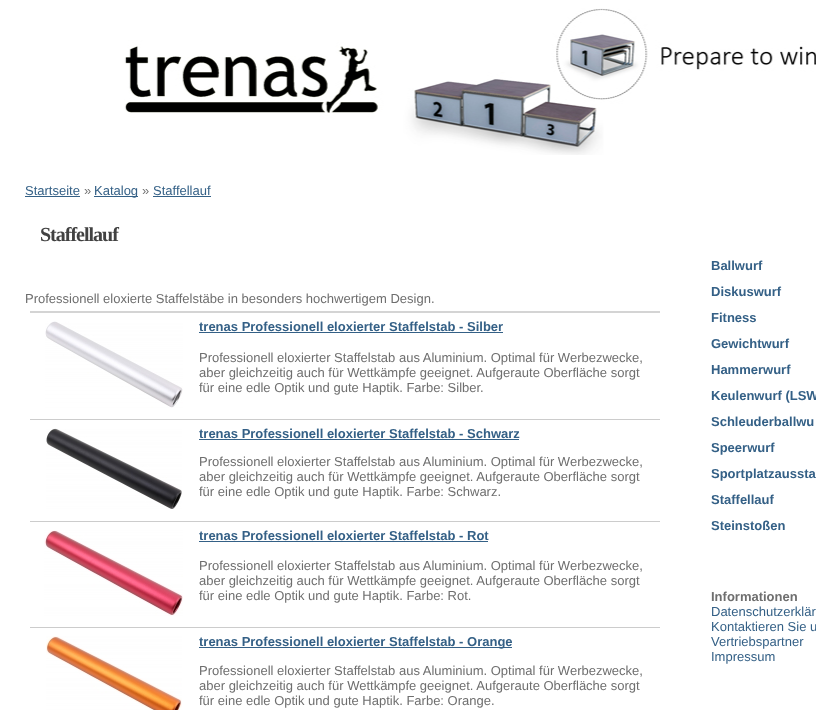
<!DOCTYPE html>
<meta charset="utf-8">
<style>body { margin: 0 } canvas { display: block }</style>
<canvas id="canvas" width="816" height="710"></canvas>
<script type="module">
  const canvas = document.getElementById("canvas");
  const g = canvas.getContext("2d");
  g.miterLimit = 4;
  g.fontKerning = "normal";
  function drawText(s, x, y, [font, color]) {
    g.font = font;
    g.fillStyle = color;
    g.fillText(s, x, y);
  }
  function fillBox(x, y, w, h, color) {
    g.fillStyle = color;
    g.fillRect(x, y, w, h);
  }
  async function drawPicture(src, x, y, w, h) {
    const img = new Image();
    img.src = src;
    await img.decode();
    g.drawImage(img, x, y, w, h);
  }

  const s1 = ["13px Liberation Sans", "#346086"];
  const s2 = ["13px Liberation Sans", "#6E6E6E"];
  const s3 = ["bold 20px Liberation Serif", "#414141"];
  const s4 = ["bold 13px Liberation Sans", "#346086"];
  const s5 = ["bold 13px Liberation Sans", "#6E6E6E"];

  fillBox(0, 0, 816, 710, "#FFFFFF");
  await drawPicture("pic1.png", 124, 8, 692, 147);
  drawText("Startseite", 25, 195, s1);
  fillBox(25, 196, 55, 1, "#346086");
  drawText("»", 84, 195, s2);
  fillBox(94, 196, 44, 1, "#346086");
  drawText("Katalog", 94, 195, s1);
  drawText("»", 142, 195, s2);
  drawText("Staffellauf", 153, 195, s1);
  fillBox(153, 196, 58, 1, "#346086");
  g.letterSpacing = "-1px";
  drawText("Staffellauf", 40, 241, s3);
  g.letterSpacing = "0px";
  drawText("Professionell eloxierte Staffelstäbe in besonders hochwertigem Design.", 25, 303, s2);
  fillBox(30, 311, 630, 2, "#D4D4D4");
  fillBox(30, 419, 630, 1, "#CCCCCC");
  await drawPicture("pic2.png", 45, 321, 138, 87);
  drawText("trenas Professionell eloxierter Staffelstab - Silber", 199, 331, s4);
  fillBox(199, 332, 304, 1, "#346086");
  drawText("Professionell eloxierter Staffelstab aus Aluminium. Optimal für Werbezwecke,", 199, 362, s2);
  drawText("aber gleichzeitig auch für Wettkämpfe geeignet. Aufgeraute Oberfläche sorgt", 199, 377, s2);
  drawText("für eine edle Optik und gute Haptik. Farbe: Silber.", 199, 392, s2);
  fillBox(30, 521, 630, 1, "#CCCCCC");
  await drawPicture("pic3.png", 46, 428, 136, 81);
  drawText("trenas Professionell eloxierter Staffelstab - Schwarz", 199, 438, s4);
  fillBox(199, 439, 320, 1, "#346086");
  drawText("Professionell eloxierter Staffelstab aus Aluminium. Optimal für Werbezwecke,", 199, 466, s2);
  drawText("aber gleichzeitig auch für Wettkämpfe geeignet. Aufgeraute Oberfläche sorgt", 199, 481, s2);
  drawText("für eine edle Optik und gute Haptik. Farbe: Schwarz.", 199, 496, s2);
  fillBox(30, 627, 630, 1, "#CCCCCC");
  await drawPicture("pic4.png", 44, 530, 139, 86);
  drawText("trenas Professionell eloxierter Staffelstab - Rot", 199, 540, s4);
  fillBox(199, 541, 289, 1, "#346086");
  drawText("Professionell eloxierter Staffelstab aus Aluminium. Optimal für Werbezwecke,", 199, 570, s2);
  drawText("aber gleichzeitig auch für Wettkämpfe geeignet. Aufgeraute Oberfläche sorgt", 199, 585, s2);
  drawText("für eine edle Optik und gute Haptik. Farbe: Rot.", 199, 600, s2);
  await drawPicture("pic5.png", 46, 636, 136, 74);
  fillBox(199, 647, 313, 1, "#346086");
  drawText("trenas Professionell eloxierter Staffelstab - Orange", 199, 646, s4);
  drawText("Professionell eloxierter Staffelstab aus Aluminium. Optimal für Werbezwecke,", 199, 675, s2);
  drawText("aber gleichzeitig auch für Wettkämpfe geeignet. Aufgeraute Oberfläche sorgt", 199, 690, s2);
  drawText("für eine edle Optik und gute Haptik. Farbe: Orange.", 199, 705, s2);
  drawText("Ballwurf", 711, 270, s4);
  drawText("Diskuswurf", 711, 296, s4);
  drawText("Fitness", 711, 322, s4);
  drawText("Gewichtwurf", 711, 348, s4);
  drawText("Hammerwurf", 711, 374, s4);
  drawText("Keulenwurf (LSW", 711, 400, s4);
  drawText("Schleuderballwu", 711, 426, s4);
  drawText("Speerwurf", 711, 452, s4);
  drawText("Sportplatzaussta", 711, 478, s4);
  drawText("Staffellauf", 711, 504, s4);
  drawText("Steinstoßen", 711, 530, s4);
  drawText("Informationen", 711, 601, s5);
  drawText("Datenschutzerklär", 711, 616, s1);
  drawText("Kontaktieren Sie u", 711, 631, s1);
  drawText("Vertriebspartner", 711, 646, s1);
  drawText("Impressum", 711, 661, s1);
</script>
